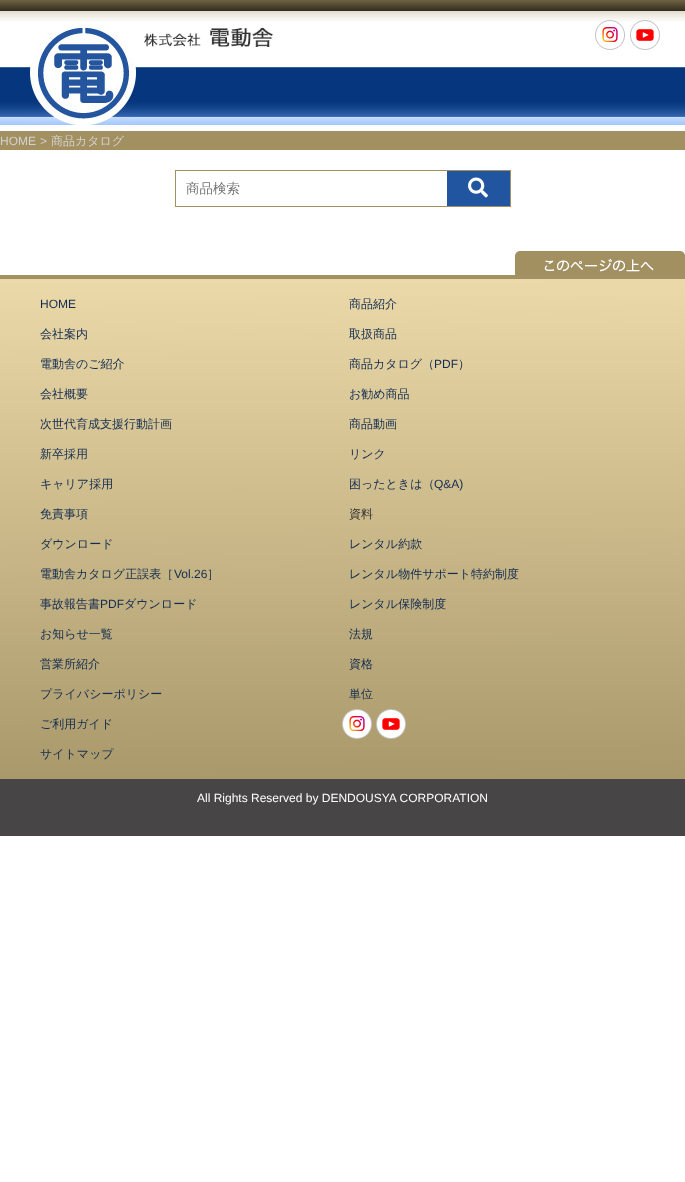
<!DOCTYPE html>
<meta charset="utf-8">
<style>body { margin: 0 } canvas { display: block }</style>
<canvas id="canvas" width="685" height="1182"></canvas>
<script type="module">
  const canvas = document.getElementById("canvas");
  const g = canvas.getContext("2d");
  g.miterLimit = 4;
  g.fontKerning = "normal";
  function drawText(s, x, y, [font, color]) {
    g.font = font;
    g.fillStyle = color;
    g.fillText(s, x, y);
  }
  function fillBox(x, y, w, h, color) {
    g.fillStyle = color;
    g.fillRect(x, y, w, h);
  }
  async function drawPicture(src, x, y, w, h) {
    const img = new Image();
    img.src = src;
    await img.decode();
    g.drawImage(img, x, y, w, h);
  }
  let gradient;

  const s1 = ["12px Liberation Sans", "#D4D1D1"];
  const s2 = ["500 12px WenQuanYi Zen Hei", "#D4D1D1"];
  const s3 = ["500 13.5px WenQuanYi Zen Hei", "#757575"];
  const s4 = ["12px Liberation Sans", "#132C51"];
  const s5 = ["500 12px WenQuanYi Zen Hei", "#132C51"];
  const s6 = ["500 12px WenQuanYi Zen Hei", "#333333"];
  const s7 = ["12px Liberation Sans", "#FFFFFF"];

  fillBox(0, 0, 685, 1182, "#FFFFFF");
  await drawPicture("pic1.png", 0, 0, 685, 150);
  await drawPicture("pic2.png", 30, 25, 106, 100);
  await drawPicture("pic3.png", 144, 27, 129, 20);
  await drawPicture("pic4.png", 595, 20, 30, 30);
  await drawPicture("pic5.png", 630, 20, 30, 30);
  drawText("HOME", 0, 145, s1);
  drawText(">", 40, 145, s1);
  drawText("商品カタログ", 51, 145, s2);
  g.strokeStyle = "#A29060";
  g.strokeRect(175.5, 170.5, 335, 36);
  drawText("商品検索", 186, 193, s3);
  fillBox(447, 171, 63, 35, "#2255A0");
  await drawPicture("pic6.png", 468, 177, 20, 21);
  await drawPicture("pic7.png", 515, 251, 170, 24);
  gradient = g.createLinearGradient(342, -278, 343, 279);
  gradient.addColorStop(0, "#EBD9A9");
  gradient.addColorStop(1, "#A29163");
  g.fillStyle = gradient;
  g.fillRect(0, 275, 685, 4);
  gradient = g.createLinearGradient(342, 279, 343, 836);
  gradient.addColorStop(0, "#EBD9A9");
  gradient.addColorStop(1, "#A29163");
  g.fillStyle = gradient;
  g.fillRect(0, 279, 685, 500);
  drawText("HOME", 40, 308, s4);
  drawText("会社案内", 40, 338, s5);
  drawText("電動舎のご紹介", 40, 368, s5);
  drawText("会社概要", 40, 398, s5);
  drawText("次世代育成支援行動計画", 40, 428, s5);
  drawText("新卒採用", 40, 458, s5);
  drawText("キャリア採用", 40, 488, s5);
  drawText("商品紹介", 349, 308, s5);
  drawText("取扱商品", 349, 338, s5);
  drawText("商品カタログ（", 349, 368, s5);
  drawText("PDF", 434, 368, s4);
  drawText("）", 458, 368, s5);
  drawText("お勧め商品", 349, 398, s5);
  drawText("商品動画", 349, 428, s5);
  drawText("リンク", 349, 458, s5);
  drawText("困ったときは（", 349, 488, s5);
  drawText("Q&A)", 434, 488, s4);
  drawText("免責事項", 40, 518, s5);
  drawText("ダウンロード", 40, 548, s5);
  drawText("電動舎カタログ正誤表［", 40, 578, s5);
  drawText("Vol.26", 174, 578, s4);
  drawText("］", 207, 578, s5);
  drawText("事故報告書", 40, 608, s5);
  drawText("PDF", 100, 608, s4);
  drawText("ダウンロード", 124, 608, s5);
  drawText("お知らせ一覧", 40, 638, s5);
  drawText("営業所紹介", 40, 668, s5);
  drawText("プライバシーポリシー", 40, 698, s5);
  drawText("資料", 349, 518, s6);
  drawText("レンタル約款", 349, 548, s5);
  drawText("レンタル物件サポート特約制度", 349, 578, s5);
  drawText("レンタル保険制度", 349, 608, s5);
  drawText("法規", 349, 638, s5);
  drawText("資格", 349, 668, s5);
  drawText("単位", 349, 698, s5);
  drawText("ご利用ガイド", 40, 728, s5);
  drawText("サイトマップ", 40, 758, s5);
  await drawPicture("pic8.png", 342, 709, 30, 30);
  await drawPicture("pic9.png", 376, 709, 30, 30);
  fillBox(0, 779, 685, 57, "#474545");
  drawText("All Rights Reserved by DENDOUSYA CORPORATION", 197, 802, s7);
</script>
